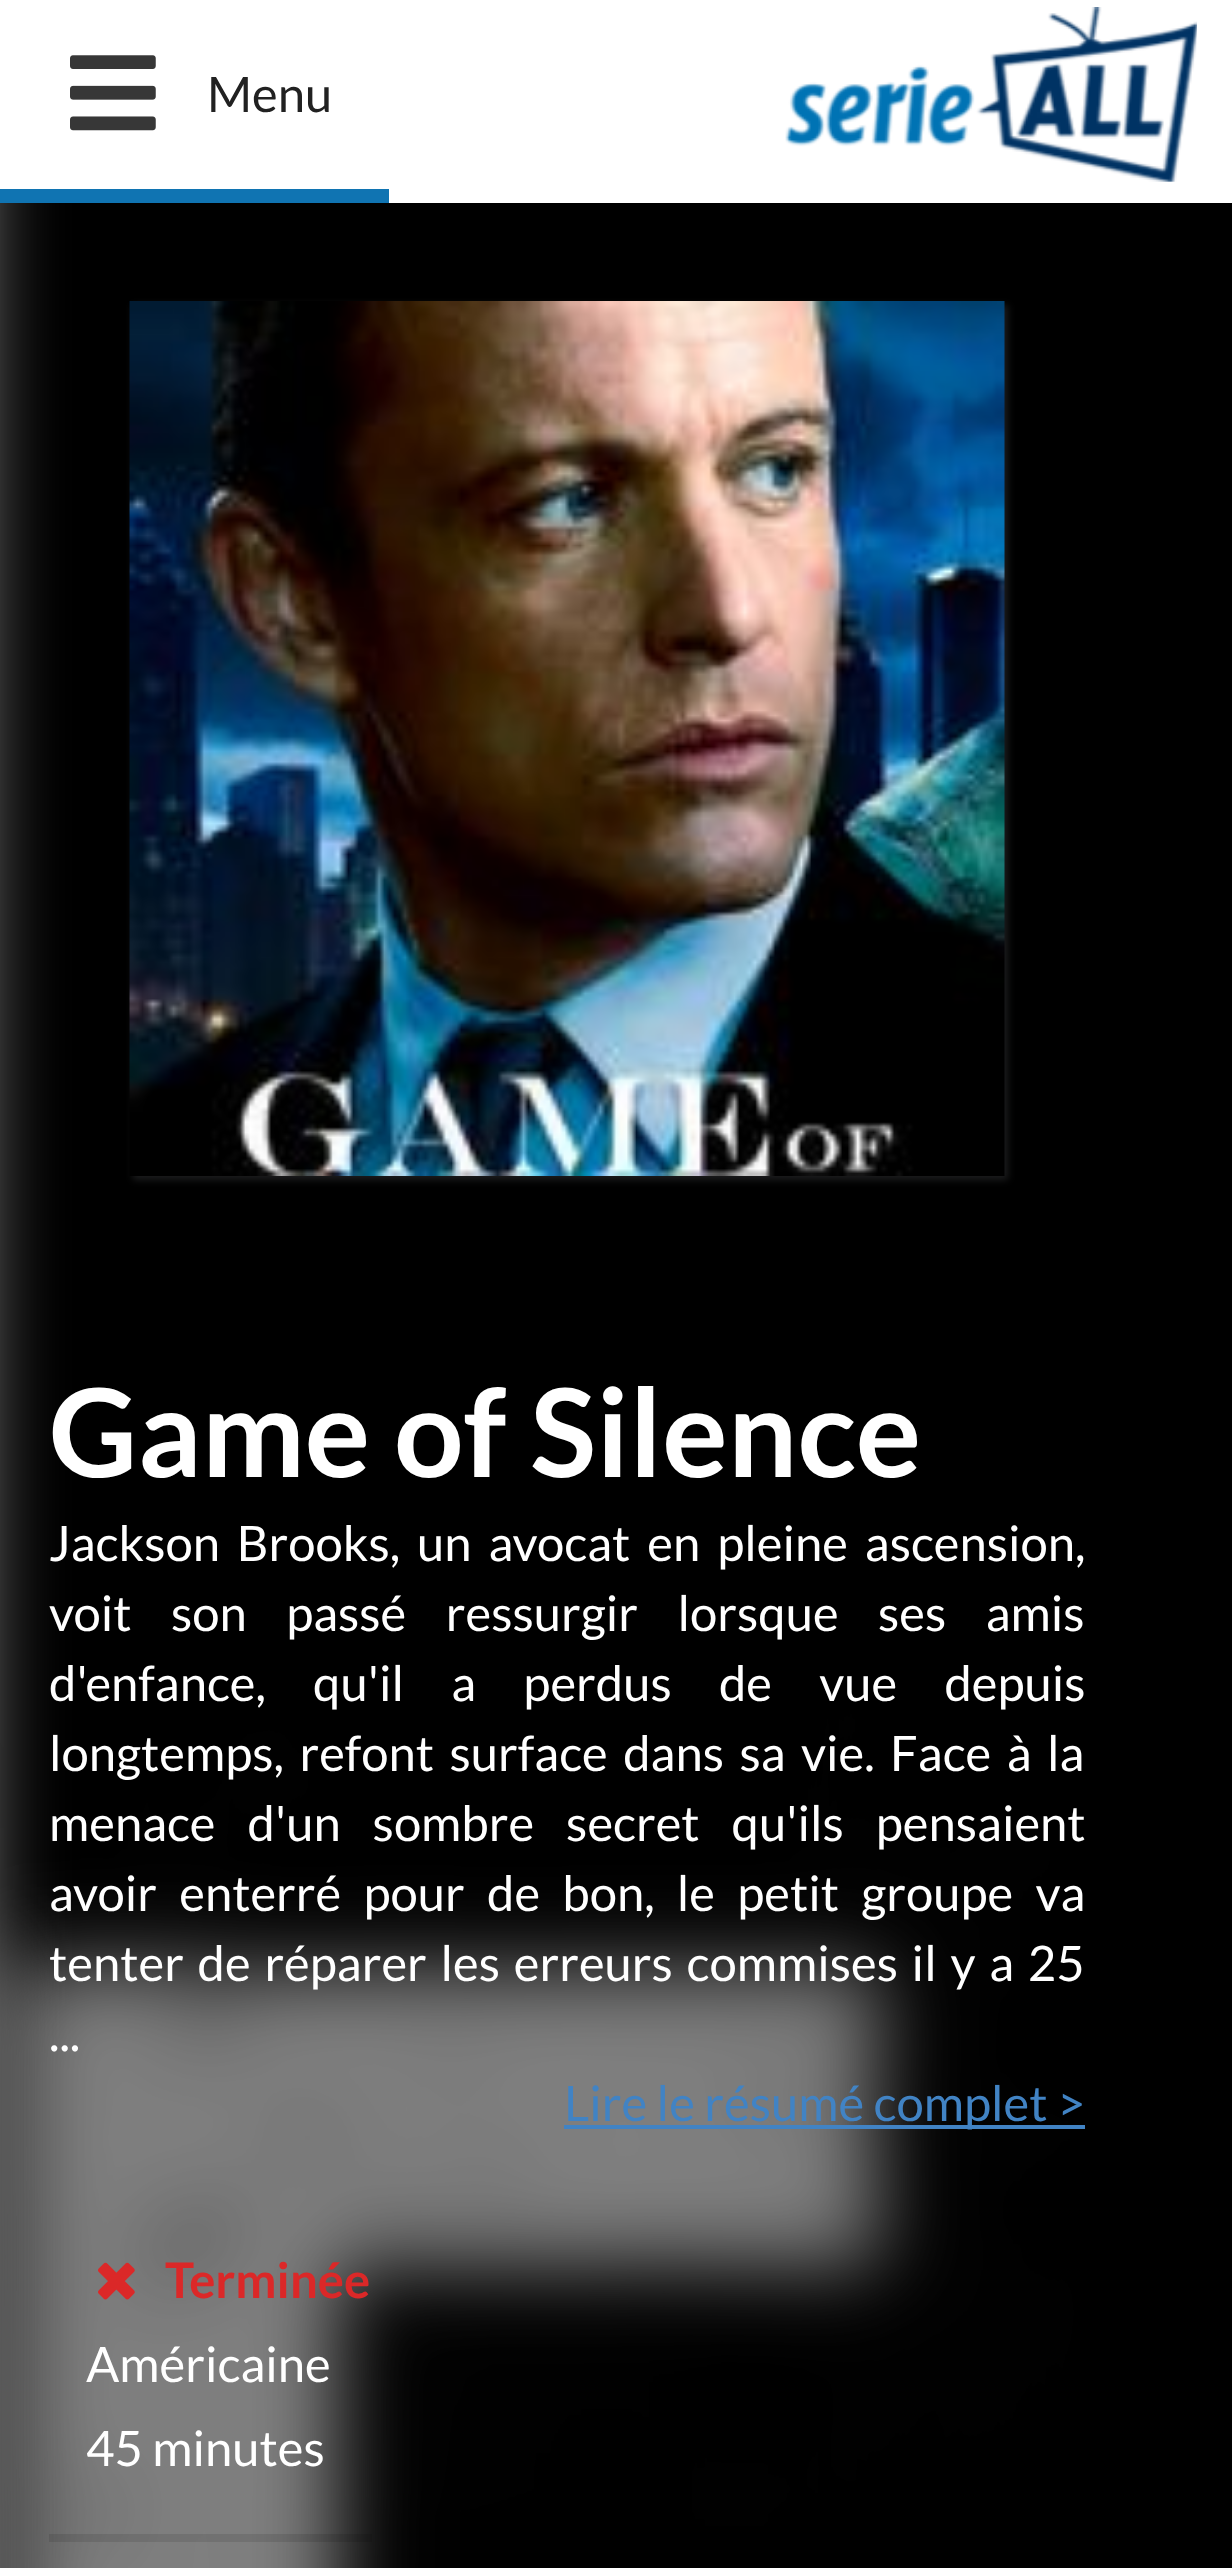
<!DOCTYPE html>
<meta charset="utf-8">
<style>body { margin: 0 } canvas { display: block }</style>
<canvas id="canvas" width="1232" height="2568"></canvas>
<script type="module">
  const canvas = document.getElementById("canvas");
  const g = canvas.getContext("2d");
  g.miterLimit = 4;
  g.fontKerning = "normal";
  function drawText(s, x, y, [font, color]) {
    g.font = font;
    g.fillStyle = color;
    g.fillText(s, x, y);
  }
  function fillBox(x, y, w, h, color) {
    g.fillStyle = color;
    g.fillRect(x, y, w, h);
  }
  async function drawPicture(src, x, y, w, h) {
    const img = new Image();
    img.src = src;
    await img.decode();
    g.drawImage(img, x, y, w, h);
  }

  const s1 = ["49px Lato", "#212121"];
  const s2 = ["bold 122.5px Lato", "#FFFFFF"];
  const s3 = ["49px Lato", "#FFFFFF"];
  const s4 = ["49px Lato", "#4183C4"];
  const s5 = ["bold 49px Lato", "#DB2828"];

  fillBox(0, 0, 1232, 2568, "#7A7A7A");
  fillBox(0, 0, 1232, 203, "#FFFFFF");
  fillBox(0, 189, 389, 14, "#1074B2");
  await drawPicture("pic1.png", 70, 55, 86, 76);
  drawText("Menu", 207, 112, s1);
  await drawPicture("pic2.png", 785, 7, 412, 175);
  await drawPicture("pic3.png", 0, 203, 1232, 2365);
  g.fillStyle = "#1B1C1D";
  g.filter = "blur(3.5px)";
  g.beginPath();
  g.rect(133, 305, 875, 875);
  g.fill();
  g.filter = "none";
  await drawPicture("pic4.png", 129, 301, 876, 875);
  drawText("Game of Silence", 49, 1477, s2);
  g.wordSpacing = "7.5px";
  drawText("Jackson Brooks, un avocat en pleine ascension,", 49, 1561, s3);
  g.wordSpacing = "30px";
  drawText("voit son passé ressurgir lorsque ses amis", 49, 1631, s3);
  g.wordSpacing = "37.75px";
  drawText("d'enfance, qu'il a perdus de vue depuis", 49, 1701, s3);
  g.wordSpacing = "6px";
  drawText("longtemps, refont surface dans sa vie. Face à la", 49, 1771, s3);
  g.wordSpacing = "22.5px";
  drawText("menace d'un sombre secret qu'ils pensaient", 49, 1841, s3);
  g.wordSpacing = "12.75px";
  drawText("avoir enterré pour de bon, le petit groupe va", 49, 1911, s3);
  g.wordSpacing = "4.25px";
  drawText("tenter de réparer les erreurs commises il y a 25", 49, 1981, s3);
  g.wordSpacing = "0px";
  drawText("...", 49, 2051, s3);
  fillBox(564, 2125, 521, 4, "#4183C4");
  drawText("Lire le résumé complet >", 564, 2121, s4);
  fillBox(49, 2534, 323, 4, "rgba(0, 0, 0, 0.1)");
  fillBox(49, 2538, 323, 4, "rgba(0, 0, 0, 0.1)");
  await drawPicture("pic5.png", 98, 2262, 37, 38);
  drawText("Terminée", 165, 2298, s5);
  drawText("Américaine", 86, 2382, s3);
  drawText("45 minutes", 86, 2466, s3);
</script>
